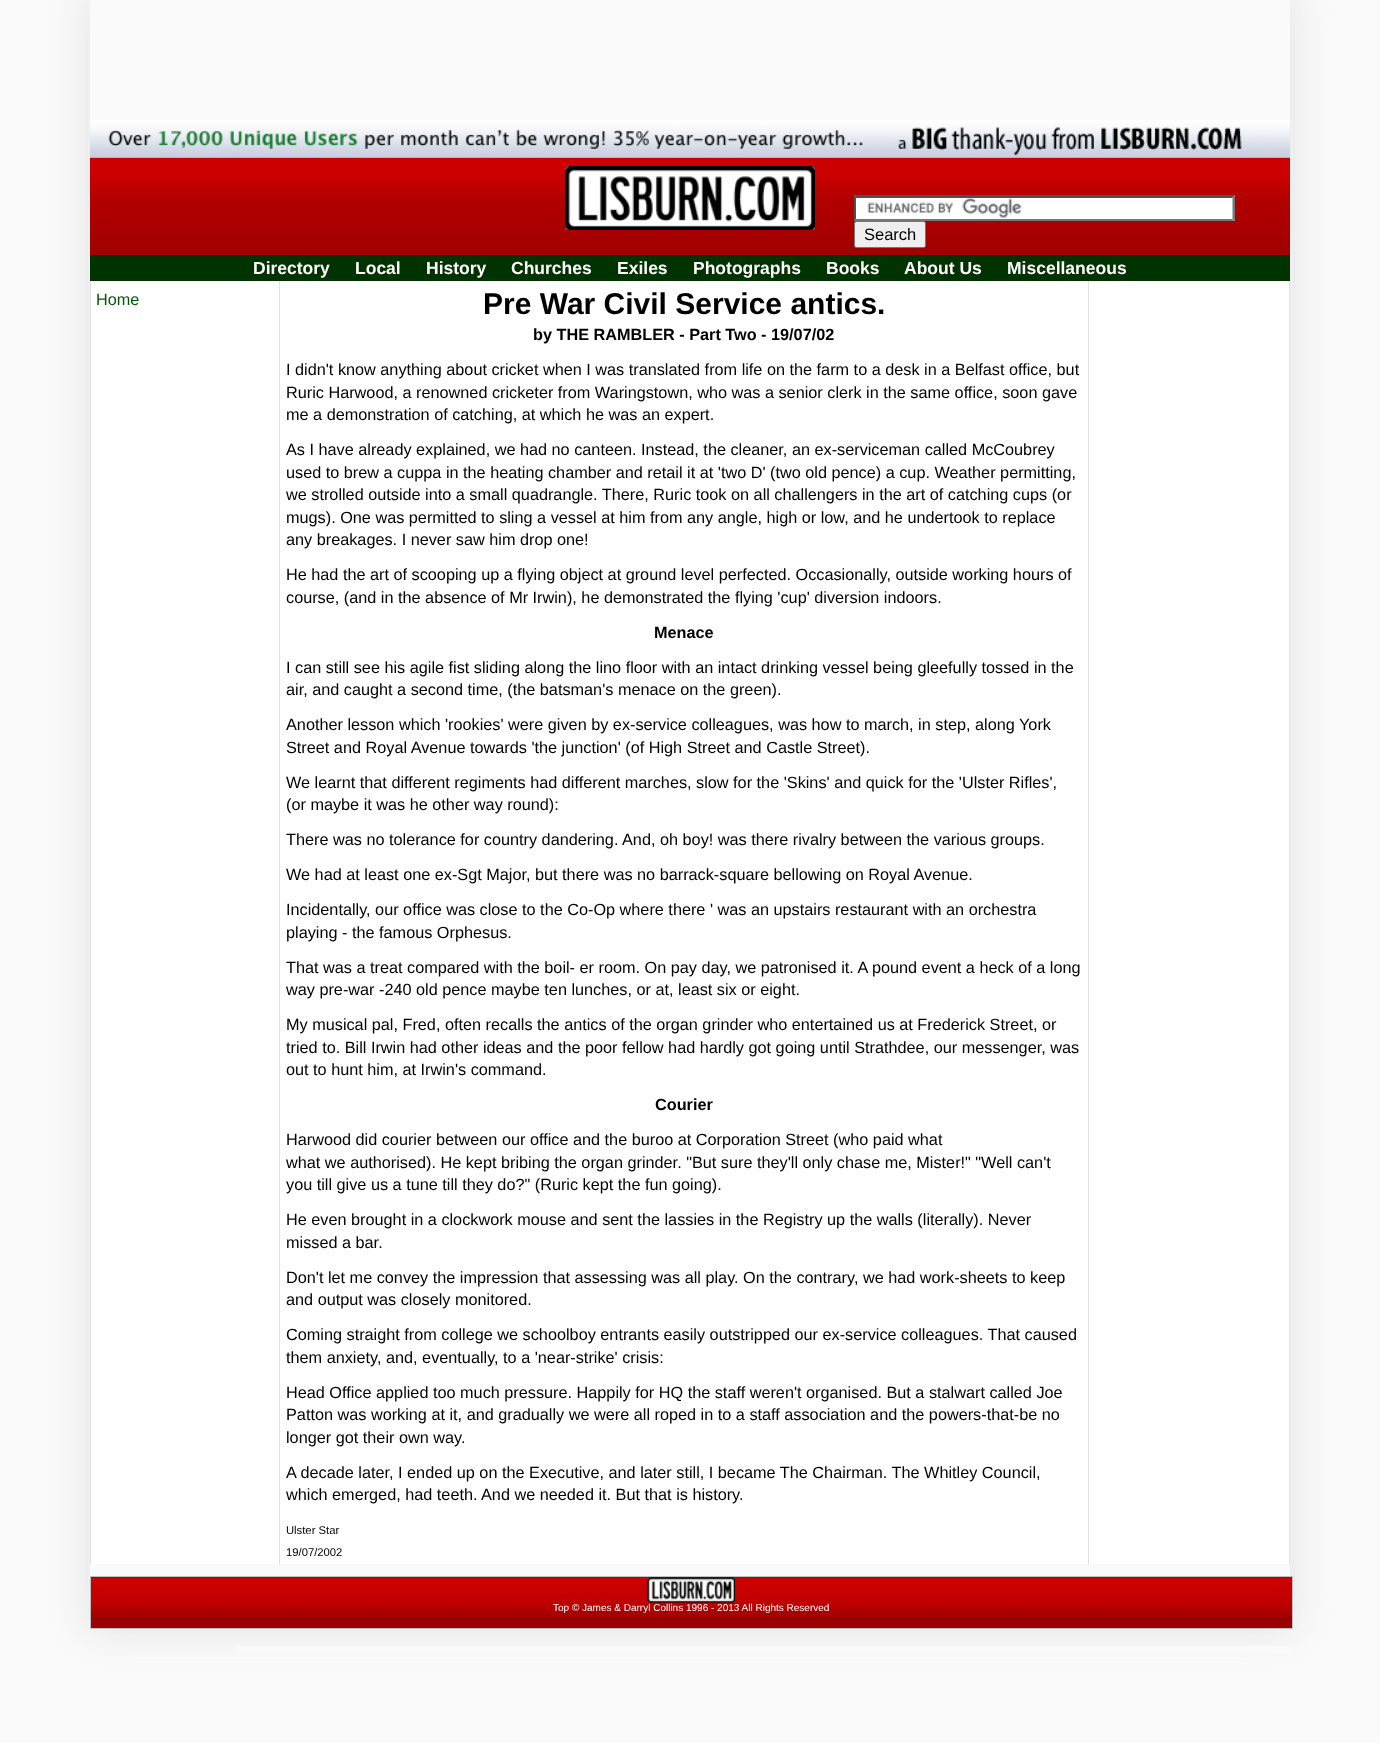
<!DOCTYPE html>
<meta charset="utf-8">
<style>body { margin: 0 } canvas { display: block }</style>
<canvas id="canvas" width="1380" height="1743"></canvas>
<script type="module">
  const canvas = document.getElementById("canvas");
  const g = canvas.getContext("2d");
  g.miterLimit = 4;
  g.fontKerning = "normal";
  function drawText(s, x, y, [font, color]) {
    g.font = font;
    g.fillStyle = color;
    g.fillText(s, x, y);
  }
  function fillBox(x, y, w, h, color) {
    g.fillStyle = color;
    g.fillRect(x, y, w, h);
  }
  async function drawPicture(src, x, y, w, h) {
    const img = new Image();
    img.src = src;
    await img.decode();
    g.drawImage(img, x, y, w, h);
  }

  const s1 = ["16.5px Liberation Sans", "#000000"];
  const s2 = ["bold 17.5px Liberation Sans", "#FFFFFF"];
  const s3 = ["16.25px Liberation Sans", "#005607"];
  const s4 = ["bold 30px Liberation Sans", "#000000"];
  const s5 = ["bold 16.25px Liberation Sans", "#000000"];
  const s6 = ["16.25px Liberation Sans", "#000000"];
  const s7 = ["11.25px Liberation Sans", "#000000"];
  const s8 = ["10px Liberation Sans", "#FFFFFF"];

  fillBox(0, 0, 1380, 1743, "#FAFAFA");
  g.save();
  g.beginPath();
  g.moveTo(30, 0);
  g.lineTo(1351, 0);
  g.lineTo(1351, 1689);
  g.lineTo(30, 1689);
  g.closePath();
  g.moveTo(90, -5);
  g.lineTo(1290, -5);
  g.lineTo(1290, 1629);
  g.lineTo(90, 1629);
  g.closePath();
  g.clip("evenodd");
  g.fillStyle = "#E3E3E3";
  g.filter = "blur(19px)";
  g.beginPath();
  g.rect(88, -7, 1205, 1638);
  g.fill();
  g.filter = "none";
  g.restore();
  await drawPicture("pic2.png", 90, 157, 1200, 98);
  await drawPicture("pic1.png", 90, 120, 1200, 38);
  fillBox(565, 166, 250, 64, "#AD0001");
  await drawPicture("pic3.png", 565, 166, 250, 64);
  await drawPicture("pic4.png", 565, 166, 250, 64);
  fillBox(854, 195, 381, 26, "#FFFFFF");
  await drawPicture("pic5.png", 867, 198, 155, 20);
  g.fillStyle = "#4F4F4F";
  g.beginPath();
  g.moveTo(854, 195);
  g.lineTo(1235, 195);
  g.lineTo(1232, 198);
  g.lineTo(856, 198);
  g.closePath();
  g.fill();
  g.fillStyle = "#767676";
  g.beginPath();
  g.moveTo(1235, 195);
  g.lineTo(1235, 221);
  g.lineTo(1232.5, 219);
  g.lineTo(1232.5, 197.5);
  g.closePath();
  g.fill();
  g.beginPath();
  g.moveTo(1235, 221);
  g.lineTo(854, 221);
  g.lineTo(856, 219);
  g.lineTo(1232, 219);
  g.closePath();
  g.fill();
  g.fillStyle = "#4F4F4F";
  g.beginPath();
  g.moveTo(854, 221);
  g.lineTo(854, 195);
  g.lineTo(856, 197.5);
  g.lineTo(856, 219);
  g.closePath();
  g.fill();
  g.fillStyle = "#EFEFEF";
  g.beginPath();
  g.roundRect(854.5, 221.5, 71, 26, 2);
  g.fill();
  g.strokeStyle = "#767676";
  g.stroke();
  drawText("Search", 864, 240, s1);
  fillBox(90, 255, 1200, 26, "#003300");
  drawText("Directory", 253, 274, s2);
  drawText("Local", 355, 274, s2);
  drawText("History", 426, 274, s2);
  drawText("Churches", 511, 274, s2);
  drawText("Exiles", 617, 274, s2);
  drawText("Photographs", 693, 274, s2);
  drawText("Books", 826, 274, s2);
  drawText("About Us", 904, 274, s2);
  drawText("Miscellaneous", 1007, 274, s2);
  fillBox(91, 281, 1198, 1283, "#FFFFFF");
  fillBox(1289, 281, 1, 1283, "#E2E2E2");
  fillBox(90, 281, 1, 1283, "#E2E2E2");
  drawText("Home", 96, 305, s3);
  fillBox(1088, 281, 1, 1283, "#E1E1E1");
  fillBox(279, 281, 1, 1283, "#E1E1E1");
  drawText("Pre War Civil Service antics.", 483, 314, s4);
  drawText("by THE RAMBLER - Part Two - 19/07/02", 533, 340, s5);
  drawText("I didn't know anything about cricket when I was translated from life on the farm to a desk in a Belfast office, but", 286, 375, s6);
  drawText("Ruric Harwood, a renowned cricketer from Waringstown, who was a senior clerk in the same office, soon gave", 286, 398, s6);
  drawText("me a demonstration of catching, at which he was an expert.", 286, 420, s6);
  drawText("As I have already explained, we had no canteen. Instead, the cleaner, an ex-serviceman called McCoubrey", 286, 455, s6);
  drawText("used to brew a cuppa in the heating chamber and retail it at 'two D' (two old pence) a cup. Weather permitting,", 286, 478, s6);
  drawText("we strolled outside into a small quadrangle. There, Ruric took on all challengers in the art of catching cups (or", 286, 500, s6);
  drawText("mugs). One was permitted to sling a vessel at him from any angle, high or low, and he undertook to replace", 286, 523, s6);
  drawText("any breakages. I never saw him drop one!", 286, 545, s6);
  drawText("He had the art of scooping up a flying object at ground level perfected. Occasionally, outside working hours of", 286, 580, s6);
  drawText("course, (and in the absence of Mr Irwin), he demonstrated the flying 'cup' diversion indoors.", 286, 603, s6);
  drawText("Menace", 654, 638, s5);
  drawText("I can still see his agile fist sliding along the lino floor with an intact drinking vessel being gleefully tossed in the", 286, 673, s6);
  drawText("air, and caught a second time, (the batsman's menace on the green).", 286, 695, s6);
  drawText("Another lesson which 'rookies' were given by ex-service colleagues, was how to march, in step, along York", 286, 730, s6);
  drawText("Street and Royal Avenue towards 'the junction' (of High Street and Castle Street).", 286, 753, s6);
  drawText("We learnt that different regiments had different marches, slow for the 'Skins' and quick for the 'Ulster Rifles',", 286, 788, s6);
  drawText("(or maybe it was he other way round):", 286, 810, s6);
  drawText("There was no tolerance for country dandering. And, oh boy! was there rivalry between the various groups.", 286, 845, s6);
  drawText("We had at least one ex-Sgt Major, but there was no barrack-square bellowing on Royal Avenue.", 286, 880, s6);
  drawText("Incidentally, our office was close to the Co-Op where there ' was an upstairs restaurant with an orchestra", 286, 915, s6);
  drawText("playing - the famous Orphesus.", 286, 938, s6);
  drawText("That was a treat compared with the boil- er room. On pay day, we patronised it. A pound event a heck of a long", 286, 973, s6);
  drawText("way pre-war -240 old pence maybe ten lunches, or at, least six or eight.", 286, 995, s6);
  drawText("My musical pal, Fred, often recalls the antics of the organ grinder who entertained us at Frederick Street, or", 286, 1030, s6);
  drawText("tried to. Bill Irwin had other ideas and the poor fellow had hardly got going until Strathdee, our messenger, was", 286, 1053, s6);
  drawText("out to hunt him, at Irwin's command.", 286, 1075, s6);
  drawText("Courier", 655, 1110, s5);
  drawText("Harwood did courier between our office and the buroo at Corporation Street (who paid what", 286, 1145, s6);
  drawText("what we authorised). He kept bribing the organ grinder. \"But sure they'll only chase me, Mister!\" \"Well can't", 286, 1168, s6);
  drawText("you till give us a tune till they do?\" (Ruric kept the fun going).", 286, 1190, s6);
  drawText("He even brought in a clockwork mouse and sent the lassies in the Registry up the walls (literally). Never", 286, 1225, s6);
  drawText("missed a bar.", 286, 1248, s6);
  drawText("Don't let me convey the impression that assessing was all play. On the contrary, we had work-sheets to keep", 286, 1283, s6);
  drawText("and output was closely monitored.", 286, 1305, s6);
  drawText("Coming straight from college we schoolboy entrants easily outstripped our ex-service colleagues. That caused", 286, 1340, s6);
  drawText("them anxiety, and, eventually, to a 'near-strike' crisis:", 286, 1363, s6);
  drawText("Head Office applied too much pressure. Happily for HQ the staff weren't organised. But a stalwart called Joe", 286, 1398, s6);
  drawText("Patton was working at it, and gradually we were all roped in to a staff association and the powers-that-be no", 286, 1420, s6);
  drawText("longer got their own way.", 286, 1443, s6);
  drawText("A decade later, I ended up on the Executive, and later still, I became The Chairman. The Whitley Council,", 286, 1478, s6);
  drawText("which emerged, had teeth.", 286, 1500, s6);
  drawText("And we needed it. But that is history.", 481, 1500, s6);
  drawText("Ulster Star", 286, 1534, s7);
  drawText("19/07/2002", 286, 1556, s7);
  fillBox(91, 1577, 1201, 51, "#9A0000");
  await drawPicture("pic6.png", 91, 1577, 1201, 40);
  g.strokeStyle = "#C0C0C0";
  g.strokeRect(90.5, 1576.5, 1202, 52);
  await drawPicture("pic7.png", 647, 1577, 88, 26);
  drawText("Top © James & Darryl Collins 1996 - 2013 All Rights Reserved", 553, 1611, s8);
  fillBox(235, 1646, 1055, 8, "#FAFAFA");
</script>
